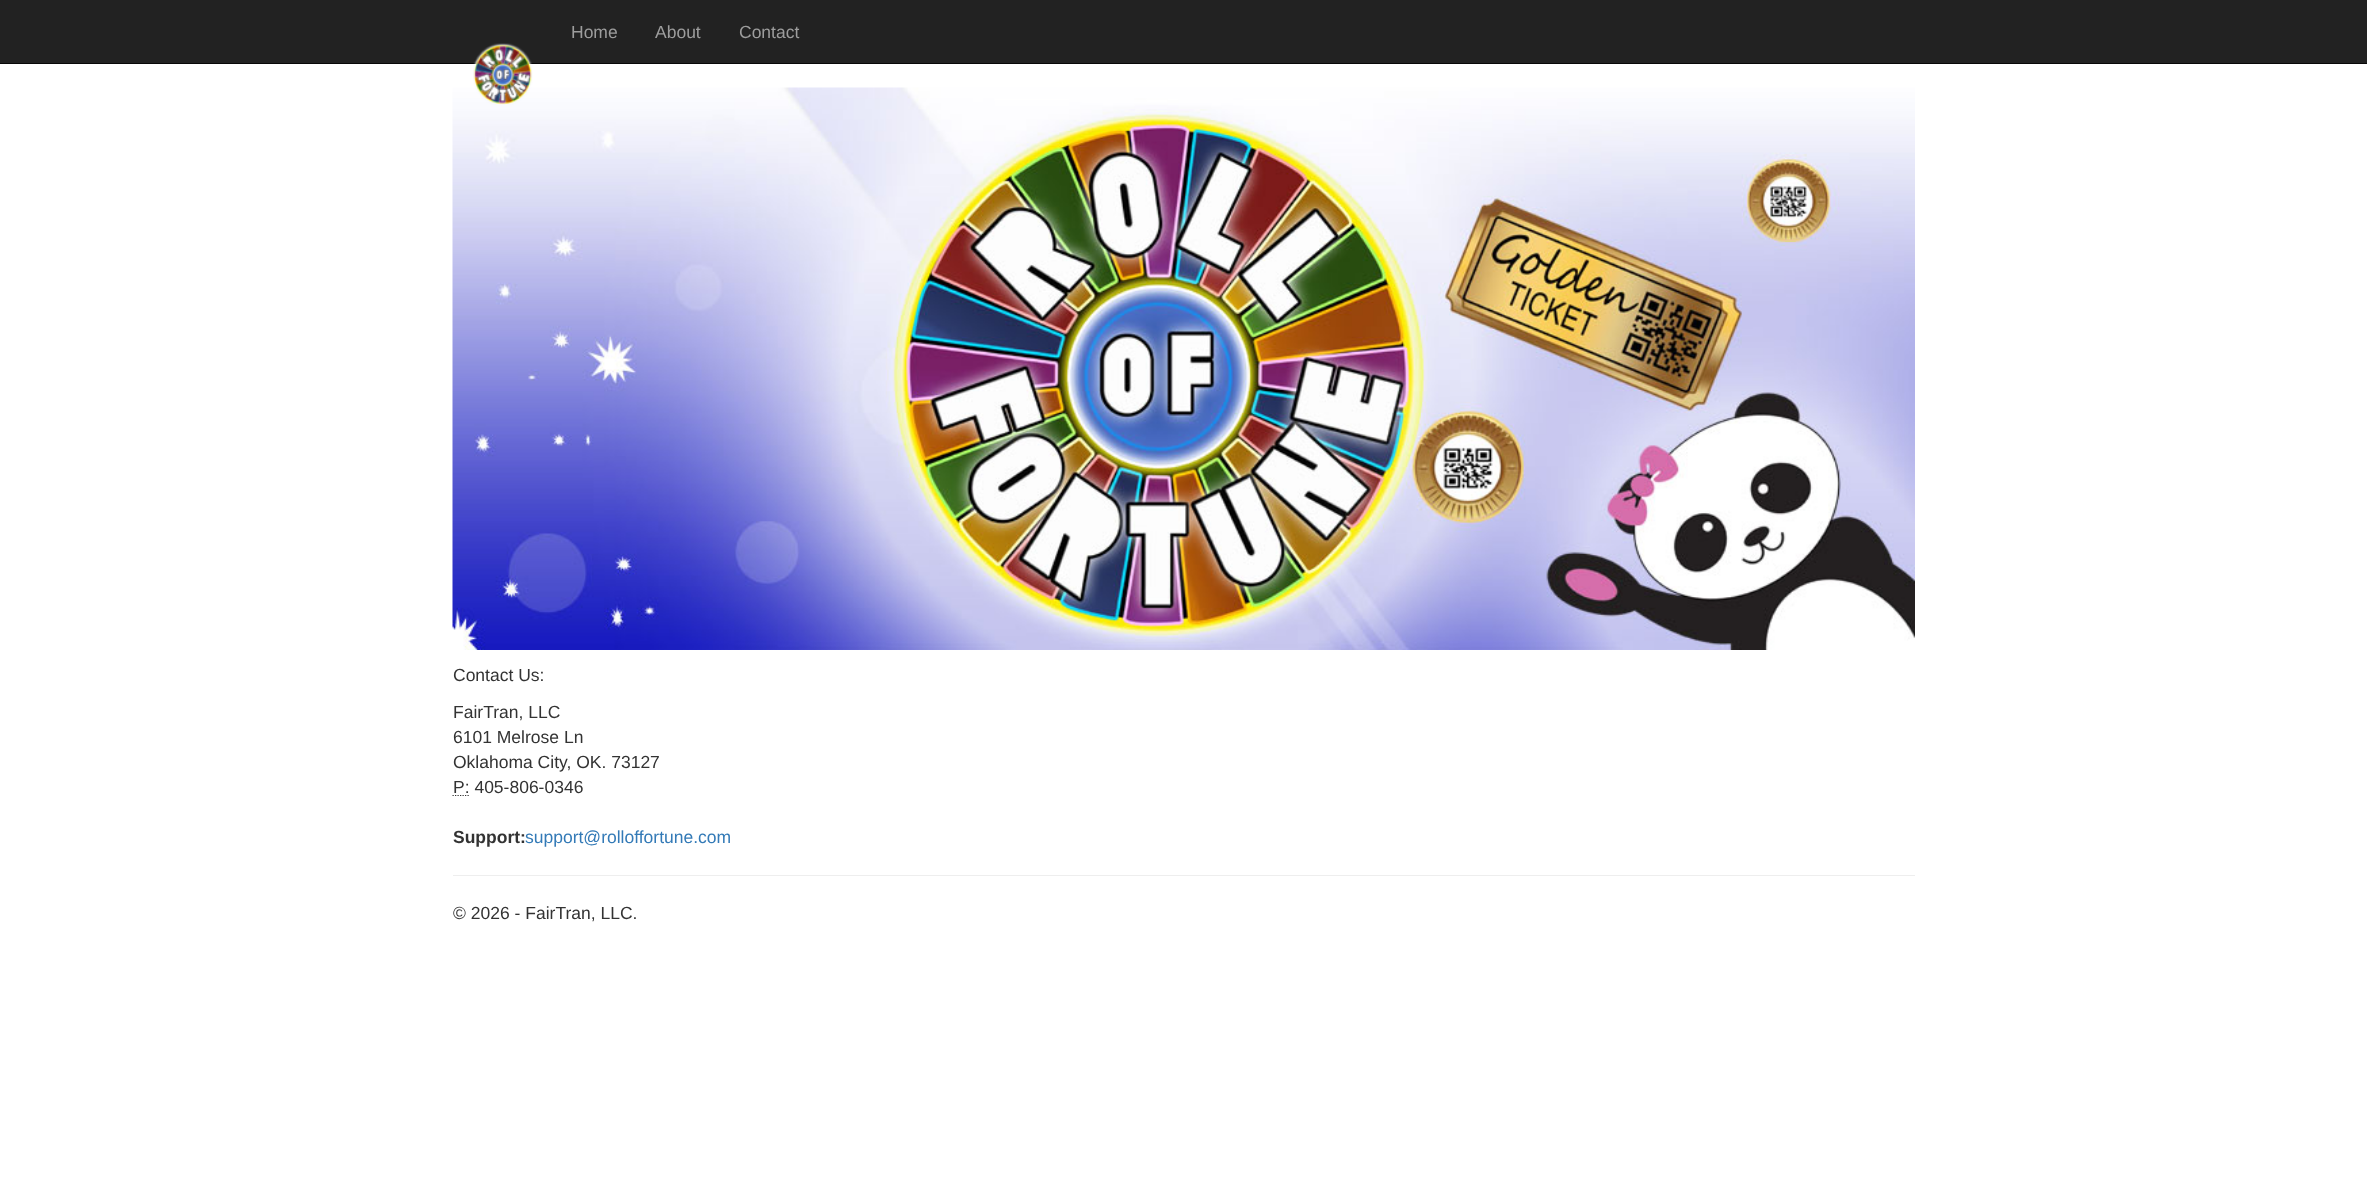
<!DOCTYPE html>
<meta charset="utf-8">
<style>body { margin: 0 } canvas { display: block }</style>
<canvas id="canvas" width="2367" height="1185"></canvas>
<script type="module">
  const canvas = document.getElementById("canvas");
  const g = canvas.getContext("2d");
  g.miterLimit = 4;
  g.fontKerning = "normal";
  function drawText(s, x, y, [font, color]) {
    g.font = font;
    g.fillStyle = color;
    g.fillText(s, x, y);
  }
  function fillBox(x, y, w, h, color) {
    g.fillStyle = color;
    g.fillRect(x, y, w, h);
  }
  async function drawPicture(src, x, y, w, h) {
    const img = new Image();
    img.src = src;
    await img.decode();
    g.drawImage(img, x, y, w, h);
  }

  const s1 = ["17.5px Liberation Sans", "#9D9D9D"];
  const s2 = ["17.5px Liberation Sans", "#333333"];
  const s3 = ["bold 17.5px Liberation Sans", "#333333"];
  const s4 = ["17.5px Liberation Sans", "#337AB7"];

  fillBox(0, 0, 2367, 1185, "#FFFFFF");
  fillBox(0, 0, 2367, 63, "#222222");
  fillBox(0, 63, 2367, 1, "#080808");
  drawText("Home", 571, 38, s1);
  drawText("About", 655, 38, s1);
  drawText("Contact", 739, 38, s1);
  await drawPicture("pic2.png", 452, 87, 1463, 563);
  await drawPicture("pic1.png", 473, 43, 60, 62);
  drawText("Contact Us:", 453, 681, s2);
  drawText("FairTran, LLC", 453, 718, s2);
  drawText("6101 Melrose Ln", 453, 743, s2);
  drawText("Oklahoma City, OK. 73127", 453, 768, s2);
  drawText("P: 405-806-0346", 453, 793, s2);
  g.beginPath();
  g.moveTo(452.5, 795.5);
  g.lineTo(469, 795.5);
  g.strokeStyle = "#333333";
  g.lineWidth = 1.2;
  g.setLineDash([1.25, 1.25]);
  g.stroke();
  drawText("Support:", 453, 843, s3);
  drawText("support@rolloffortune.com", 525, 843, s4);
  fillBox(453, 875, 1462, 1, "#EEEEEE");
  drawText("© 2026 - FairTran, LLC.", 453, 919, s2);
</script>
